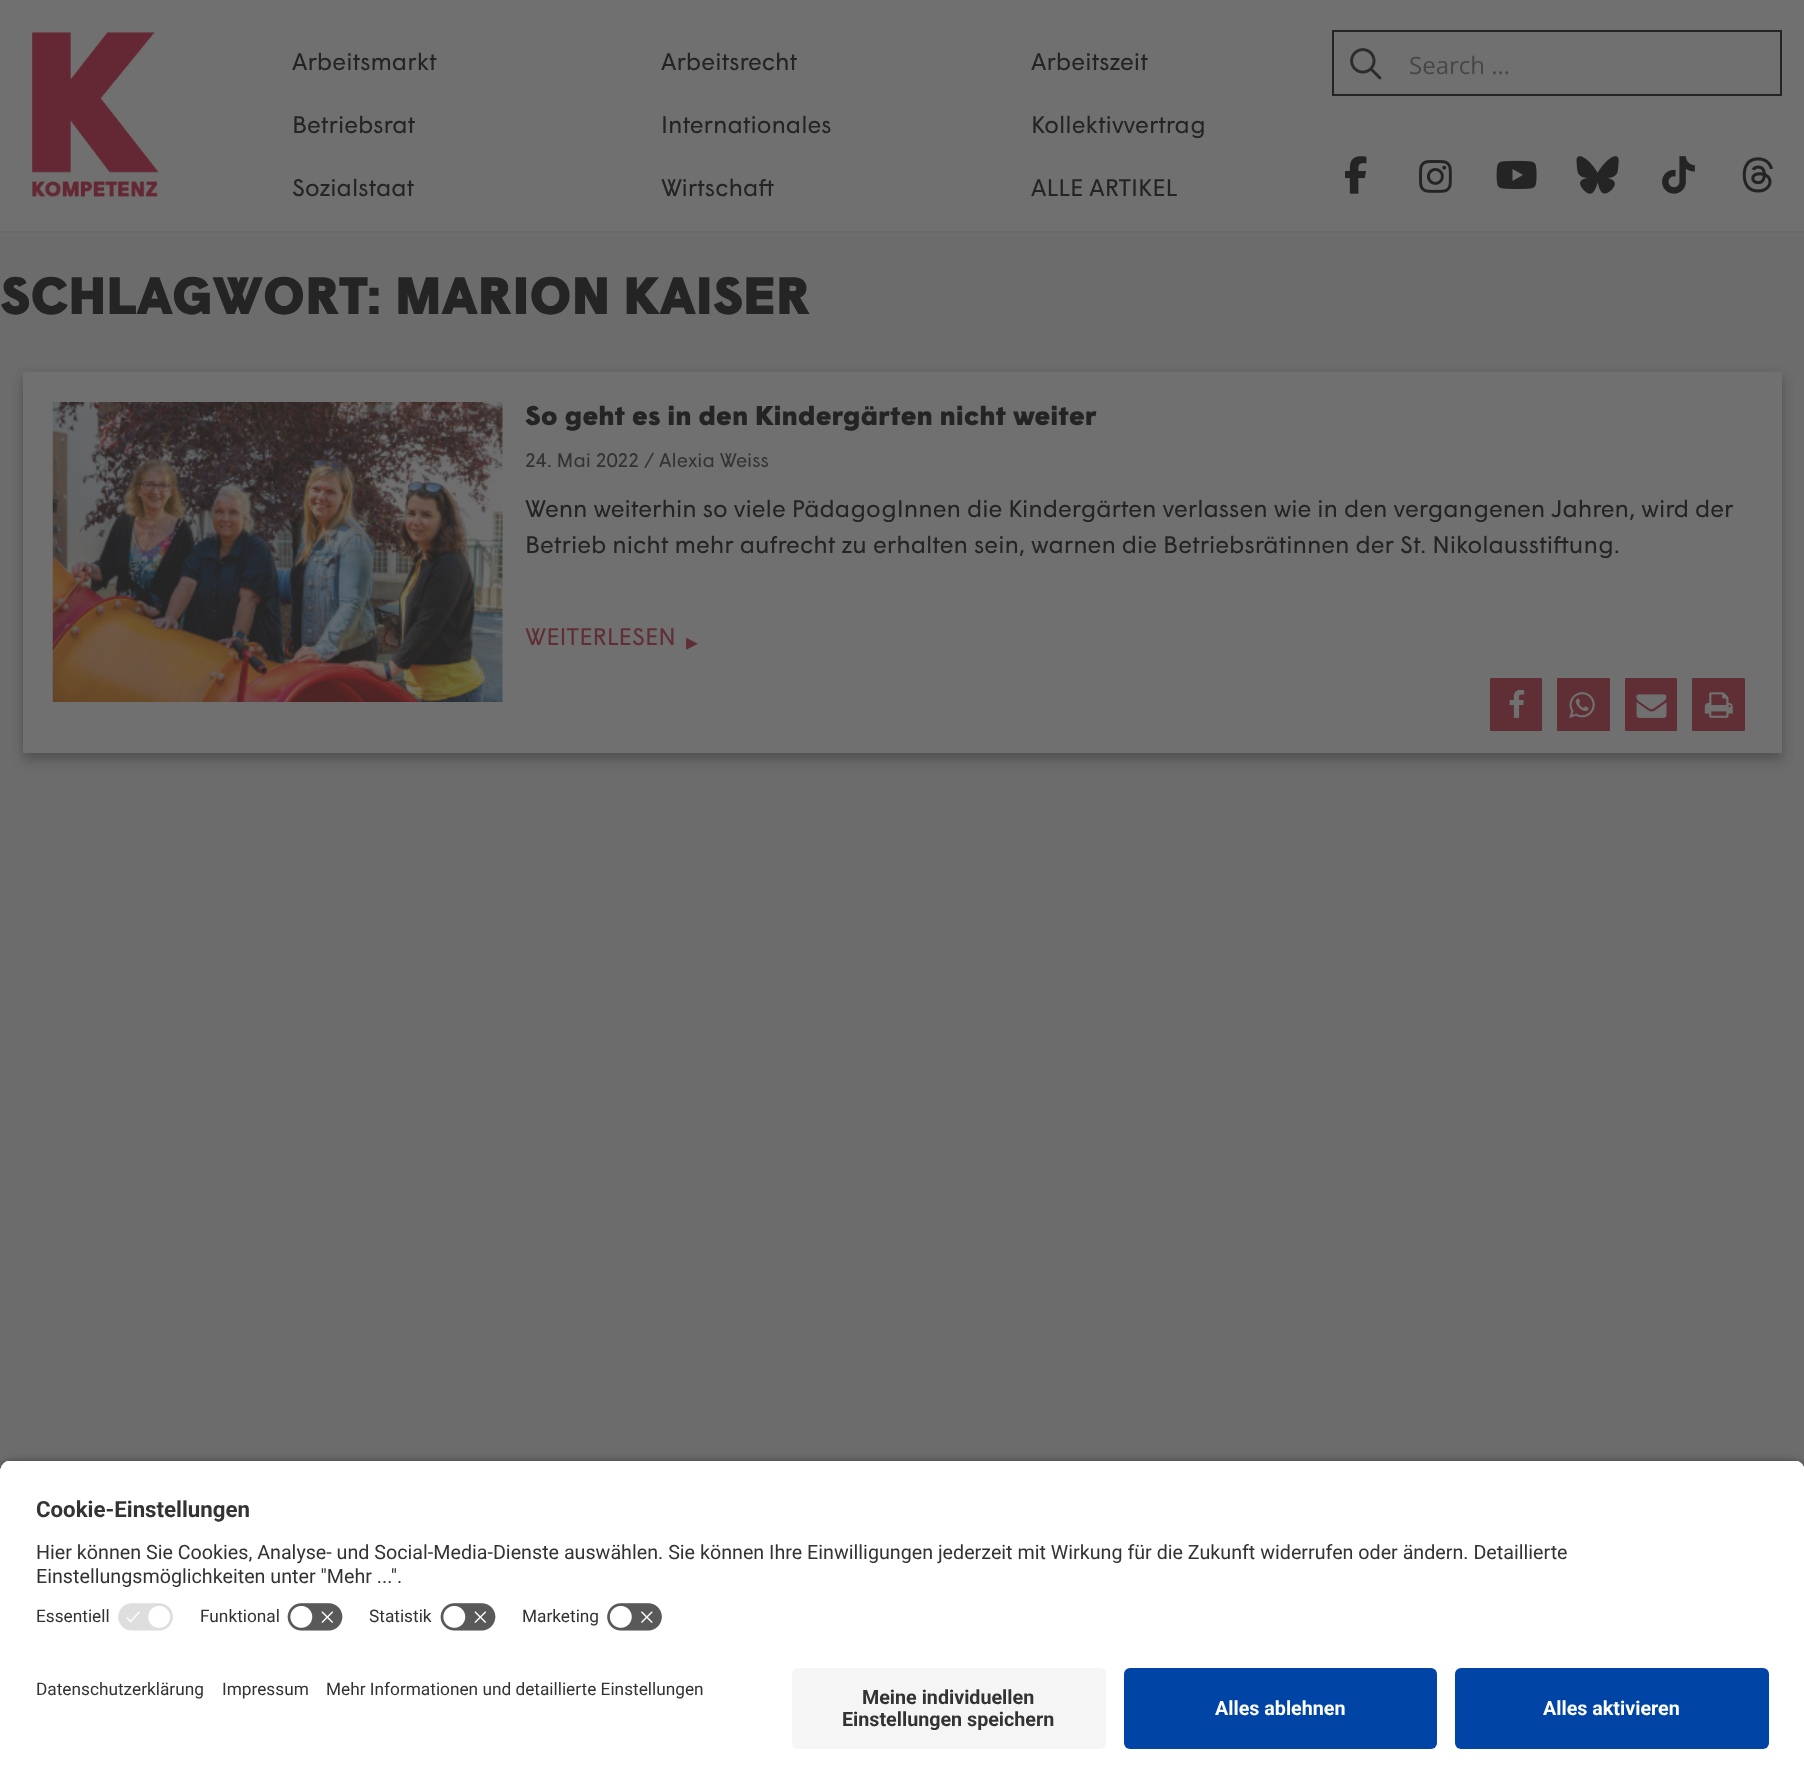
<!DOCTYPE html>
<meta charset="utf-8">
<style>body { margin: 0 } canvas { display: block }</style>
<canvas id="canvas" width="1804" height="1784"></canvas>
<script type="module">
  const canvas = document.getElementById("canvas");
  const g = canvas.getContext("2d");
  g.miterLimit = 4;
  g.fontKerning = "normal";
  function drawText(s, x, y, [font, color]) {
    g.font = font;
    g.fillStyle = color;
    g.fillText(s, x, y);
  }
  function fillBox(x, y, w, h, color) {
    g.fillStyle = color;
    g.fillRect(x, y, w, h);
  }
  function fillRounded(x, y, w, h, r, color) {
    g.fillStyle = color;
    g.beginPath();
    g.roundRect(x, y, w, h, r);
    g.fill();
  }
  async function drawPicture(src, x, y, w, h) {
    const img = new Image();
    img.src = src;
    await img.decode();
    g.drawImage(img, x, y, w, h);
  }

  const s1 = ["24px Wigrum", "#242424"];
  const s2 = ["24px Open Sans", "#474747"];
  const s3 = ["900 52.5px Wigrum", "#242424"];
  const s4 = ["900 27px Wigrum", "#242424"];
  const s5 = ["19.5px Wigrum", "#333333"];
  const s6 = ["24px Wigrum", "#602F36"];
  const s7 = ["24px DejaVu Sans", "#602F36"];
  const s8 = ["bold 22.25px Roboto", "#333333"];
  const s9 = ["19.7px Roboto", "#333333"];
  const s10 = ["17.25px Roboto", "#333333"];
  const s11 = ["bold 19.7px Roboto", "#333333"];
  const s12 = ["bold 19.7px Roboto", "#FFFFFF"];

  fillBox(0, 0, 1804, 1784, "#6C6C6C");
  fillBox(0, 0, 1804, 231, "#707070");
  fillBox(0, 231, 1804, 2, "#696969");
  await drawPicture("pic1.png", 31, 32, 128, 165);
  drawText("Arbeitsmarkt", 292, 70, s1);
  drawText("Arbeitsrecht", 661, 70, s1);
  drawText("Arbeitszeit", 1031, 70, s1);
  drawText("Betriebsrat", 292, 133, s1);
  drawText("Internationales", 661, 133, s1);
  drawText("Kollektivvertrag", 1031, 133, s1);
  drawText("Sozialstaat", 292, 196, s1);
  drawText("Wirtschaft", 661, 196, s1);
  drawText("ALLE ARTIKEL", 1031, 196, s1);
  g.strokeStyle = "#242424";
  g.lineWidth = 2;
  g.strokeRect(1333, 31, 448, 64);
  await drawPicture("pic2.png", 1350, 48, 32, 32);
  drawText("Search …", 1409, 74, s2);
  await drawPicture("pic3.png", 1345, 156, 22, 38);
  await drawPicture("pic4.png", 1419, 160, 33, 33);
  await drawPicture("pic5.png", 1496, 160, 41, 29);
  await drawPicture("pic6.png", 1576, 156, 43, 38);
  await drawPicture("pic7.png", 1662, 156, 33, 38);
  await drawPicture("pic8.png", 1742, 157, 31, 36);
  drawText("SCHLAGWORT: MARION KAISER", 0, 314, s3);
  g.fillStyle = "rgba(36, 36, 36, 0.2)";
  g.filter = "blur(6px)";
  g.beginPath();
  g.rect(23, 378, 1759, 381);
  g.fill();
  g.filter = "none";
  g.filter = "blur(6px)";
  g.beginPath();
  g.rect(23, 378, 1759, 381);
  g.fill();
  g.filter = "none";
  fillBox(23, 372, 1759, 381, "#707070");
  await drawPicture("pic9.png", 52, 402, 451, 300);
  drawText("So geht es in den Kindergärten nicht weiter", 525, 425, s4);
  drawText("24. Mai 2022 / Alexia Weiss", 525, 467, s5);
  drawText("Wenn weiterhin so viele PädagogInnen die Kindergärten verlassen wie in den vergangenen Jahren, wird der", 525, 517, s1);
  drawText("Betrieb nicht mehr aufrecht zu erhalten sein, warnen die Betriebsrätinnen der St. Nikolausstiftung.", 525, 553, s1);
  drawText("WEITERLESEN", 525, 645, s6);
  drawText("▸", 686, 650, s7);
  fillRounded(1490, 678, 52, 53, 1, "#602F36");
  await drawPicture("pic10.png", 1509, 689, 16, 29);
  fillRounded(1557, 678, 53, 53, 1, "#602F36");
  await drawPicture("pic11.png", 1569, 692, 26, 26);
  fillRounded(1625, 678, 52, 53, 1, "#602F36");
  await drawPicture("pic12.png", 1636, 694, 31, 24);
  fillRounded(1692, 678, 53, 53, 1, "#602F36");
  await drawPicture("pic13.png", 1704, 692, 29, 26);
  g.fillStyle = "rgba(0, 0, 0, 0.8)";
  g.filter = "blur(5px)";
  g.beginPath();
  g.roundRect(0, 1464, 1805, 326, 12);
  g.fill();
  g.filter = "none";
  g.save();
  g.beginPath();
  g.moveTo(12, 1460);
  g.lineTo(1793, 1460);
  g.bezierCurveTo(1799.5, 1460, 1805, 1465.5, 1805, 1472);
  g.lineTo(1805, 1656);
  g.lineTo(0, 1656);
  g.lineTo(0, 1472);
  g.bezierCurveTo(0, 1465.5, 5.5, 1460, 12, 1460);
  g.closePath();
  g.clip();
  fillBox(0, 1461, 1804, 195, "#FFFFFF");
  fillBox(0, 1461, 1804, 135, "#FFFFFF");
  g.restore();
  drawText("Cookie-Einstellungen", 36, 1517, s8);
  drawText("Hier können Sie Cookies, Analyse- und Social-Media-Dienste auswählen. Sie können Ihre Einwilligungen jederzeit mit Wirkung für die Zukunft widerrufen oder ändern. Detaillierte", 36, 1559, s9);
  drawText("Einstellungsmöglichkeiten unter \"Mehr ...\".", 36, 1583, s9);
  drawText("Essentiell", 36, 1622, s10);
  await drawPicture("pic14.png", 118, 1603, 55, 28);
  drawText("Funktional", 200, 1622, s10);
  await drawPicture("pic15.png", 287, 1603, 56, 28);
  drawText("Statistik", 369, 1622, s10);
  await drawPicture("pic15.png", 440, 1603, 56, 28);
  drawText("Marketing", 522, 1622, s10);
  await drawPicture("pic16.png", 607, 1603, 55, 28);
  fillBox(0, 1656, 1804, 128, "#FFFFFF");
  drawText("Datenschutzerklärung", 36, 1695, s10);
  drawText("Impressum", 222, 1695, s10);
  drawText("Mehr Informationen und detaillierte Einstellungen", 326, 1695, s10);
  fillRounded(792, 1668, 314, 81, 6, "#F5F5F5");
  drawText("Meine individuellen", 862, 1704, s11);
  drawText("Einstellungen speichern", 842, 1726, s11);
  fillRounded(1124, 1668, 313, 81, 6, "#0045A5");
  drawText("Alles ablehnen", 1215, 1715, s12);
  fillRounded(1455, 1668, 314, 81, 6, "#0045A5");
  drawText("Alles aktivieren", 1543, 1715, s12);
</script>
